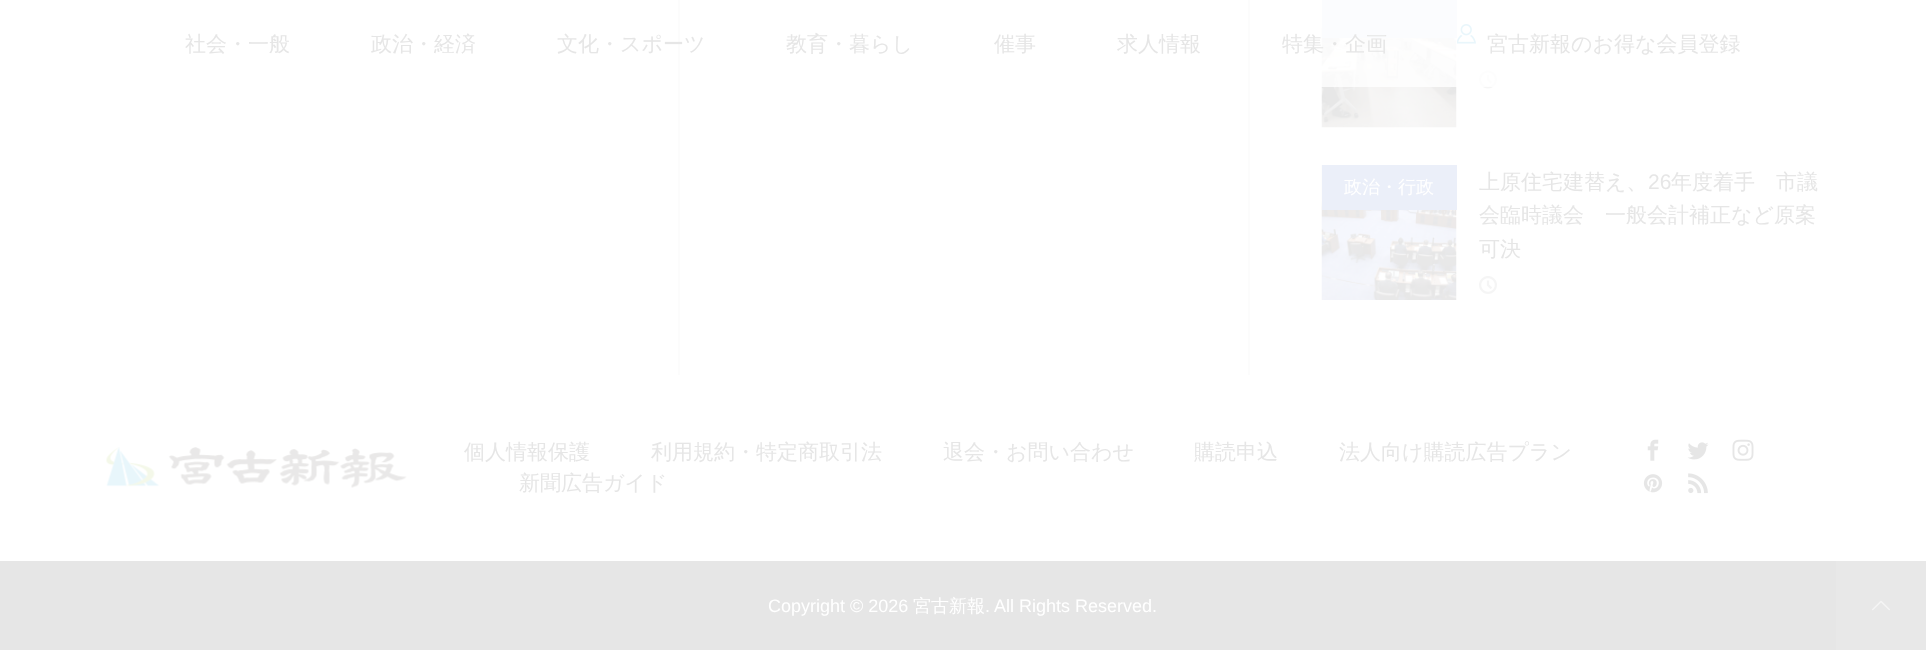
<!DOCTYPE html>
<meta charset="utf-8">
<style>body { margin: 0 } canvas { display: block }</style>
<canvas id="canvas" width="1926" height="650"></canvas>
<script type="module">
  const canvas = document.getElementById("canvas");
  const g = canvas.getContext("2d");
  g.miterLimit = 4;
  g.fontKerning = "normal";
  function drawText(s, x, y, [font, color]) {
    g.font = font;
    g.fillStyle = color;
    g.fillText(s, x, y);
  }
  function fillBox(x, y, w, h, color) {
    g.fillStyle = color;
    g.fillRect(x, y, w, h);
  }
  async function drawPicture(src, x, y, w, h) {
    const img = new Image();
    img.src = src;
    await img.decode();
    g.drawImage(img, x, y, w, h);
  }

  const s1 = ["500 21px WenQuanYi Zen Hei", "#E6E6E6"];
  const s2 = ["500 18px WenQuanYi Zen Hei", "#FFFFFF"];
  const s3 = ["21px Liberation Sans", "#E6E6E6"];
  const s4 = ["18px Liberation Sans", "#FFFFFF"];

  fillBox(0, 0, 1926, 650, "#FFFFFF");
  await drawPicture("pic2.png", 1321, 0, 136, 128);
  fillBox(1322, 0, 135, 38, "#EBEFF9");
  await drawPicture("pic3.png", 1479, 70, 18, 19);
  fillBox(1321, 0, 176, 87, "rgba(255, 255, 255, 0.8)");
  drawText("社会・一般", 185, 51, s1);
  drawText("政治・経済", 371, 51, s1);
  fillBox(678, 0, 2, 375, "#FCFCFC");
  drawText("文化・スポーツ", 557, 51, s1);
  drawText("教育・暮らし", 786, 51, s1);
  drawText("催事", 994, 51, s1);
  drawText("求人情報", 1117, 51, s1);
  drawText("特集・企画", 1282, 51, s1);
  await drawPicture("pic1.png", 1457, 24, 19, 20);
  drawText("宮古新報のお得な会員登録", 1487, 51, s1);
  fillBox(1248, 0, 2, 375, "#FCFCFC");
  await drawPicture("pic4.png", 1321, 165, 136, 135);
  fillBox(1322, 165, 135, 45, "#EBEFF9");
  drawText("政治・行政", 1344, 193, s2);
  drawText("上原住宅建替え、", 1479, 189, s1);
  drawText("26", 1648, 189, s3);
  drawText("年度着手　市議", 1671, 189, s1);
  drawText("会臨時議会　一般会計補正など原案", 1479, 222, s1);
  drawText("可決", 1479, 256, s1);
  await drawPicture("pic5.png", 1479, 276, 18, 18);
  await drawPicture("pic6.png", 106, 447, 301, 41);
  drawText("個人情報保護", 464, 459, s1);
  drawText("利用規約・特定商取引法", 651, 459, s1);
  drawText("退会・お問い合わせ", 943, 459, s1);
  drawText("購読申込", 1194, 459, s1);
  drawText("法人向け購読広告プラン", 1339, 459, s1);
  drawText("新聞広告ガイド", 519, 490, s1);
  await drawPicture("pic7.png", 1647, 439, 12, 22);
  await drawPicture("pic8.png", 1687, 442, 22, 18);
  await drawPicture("pic9.png", 1732, 439, 22, 22);
  await drawPicture("pic10.png", 1643, 474, 20, 19);
  await drawPicture("pic11.png", 1688, 473, 20, 21);
  fillBox(0, 561, 1836, 89, "#E6E6E6");
  drawText("Copyright © 2026", 768, 612, s4);
  drawText("宮古新報", 913, 612, s2);
  drawText(". All Rights Reserved.", 985, 612, s4);
  fillBox(1836, 561, 90, 89, "#E8E8E8");
  await drawPicture("pic12.png", 1872, 600, 18, 11);
</script>
